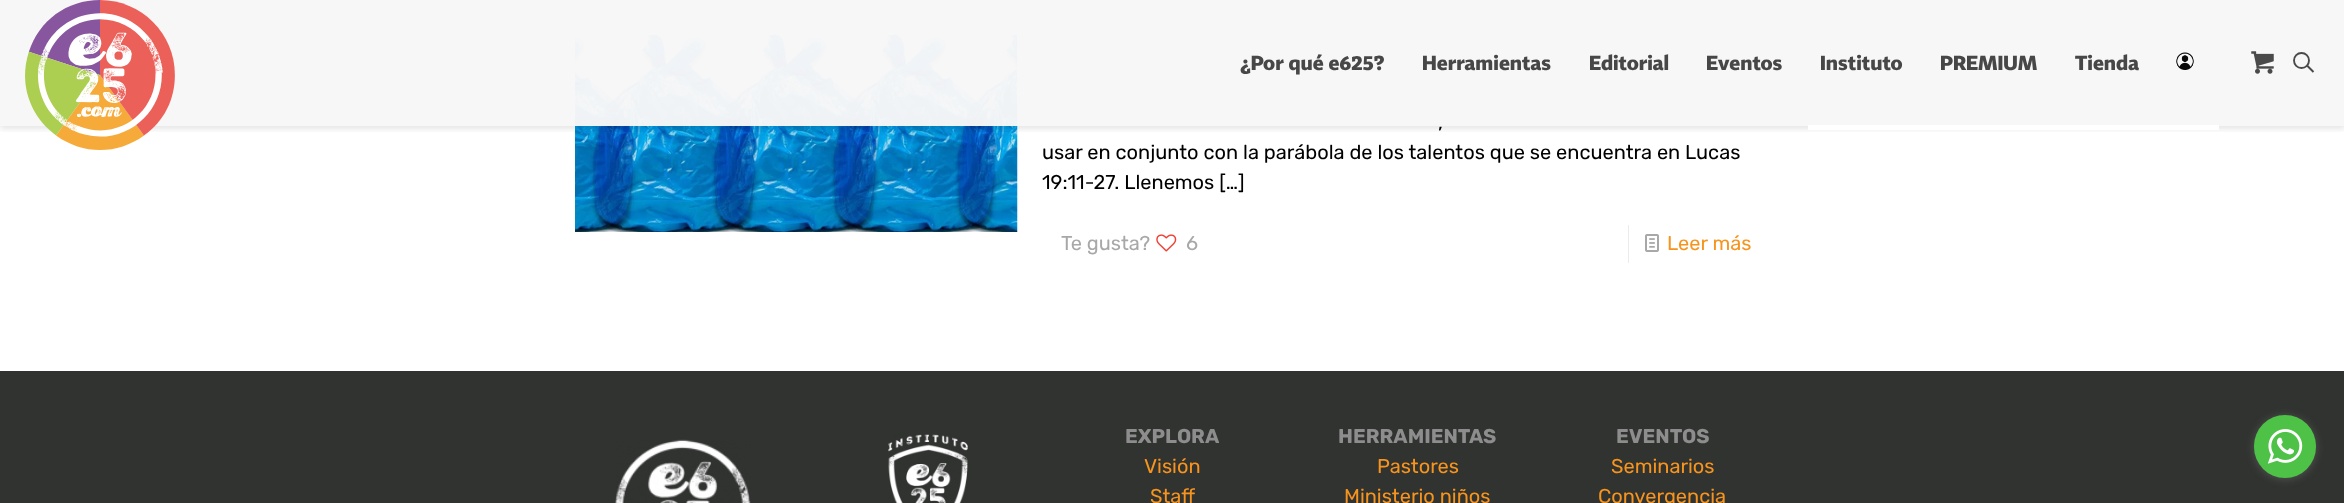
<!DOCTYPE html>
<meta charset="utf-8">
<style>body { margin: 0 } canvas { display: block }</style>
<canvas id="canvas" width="2344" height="503"></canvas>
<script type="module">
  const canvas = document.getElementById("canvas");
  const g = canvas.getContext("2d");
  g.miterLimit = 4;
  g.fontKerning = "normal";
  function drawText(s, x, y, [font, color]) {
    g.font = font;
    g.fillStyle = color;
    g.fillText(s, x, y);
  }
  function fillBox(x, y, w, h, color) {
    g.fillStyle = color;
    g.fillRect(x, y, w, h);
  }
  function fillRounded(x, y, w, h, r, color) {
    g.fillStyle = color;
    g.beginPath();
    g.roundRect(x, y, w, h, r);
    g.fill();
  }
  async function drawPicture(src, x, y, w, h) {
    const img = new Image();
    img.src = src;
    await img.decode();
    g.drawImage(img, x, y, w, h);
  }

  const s1 = ["bold 20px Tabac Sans", "#474747"];
  const s2 = ["300 20px Rubik", "#000000"];
  const s3 = ["300 20px Rubik", "#A8A8A8"];
  const s4 = ["300 20px Rubik", "#F7941E"];
  const s5 = ["bold 20px Rubik", "#8D8D8D"];

  fillBox(0, 0, 2344, 503, "#FFFFFF");
  await drawPicture("pic4.png", 575, 34, 443, 198);
  g.save();
  g.beginPath();
  g.rect(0, 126, 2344, 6);
  g.clip();
  g.fillStyle = "rgba(0, 0, 0, 0.1)";
  g.filter = "blur(3px)";
  g.beginPath();
  g.rect(0, 3, 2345, 126);
  g.fill();
  g.filter = "none";
  g.restore();
  fillBox(0, 0, 2344, 126, "rgba(248, 247, 247, 0.97)");
  await drawPicture("pic1.png", 25, 0, 150, 150);
  drawText("¿Por qué e625?", 1240, 70, s1);
  drawText("Herramientas", 1422, 70, s1);
  drawText("Editorial", 1589, 70, s1);
  drawText("Eventos", 1706, 70, s1);
  drawText("Instituto", 1820, 70, s1);
  fillBox(1808, 125, 411, 5, "#FFFFFF");
  drawText("PREMIUM", 1940, 70, s1);
  drawText("Tienda", 2075, 70, s1);
  await drawPicture("pic2.png", 2176, 52, 18, 18);
  await drawPicture("pic3.png", 2251, 51, 23, 23);
  g.beginPath();
  g.arc(2301.5, 60.5, 7.5, 0, Math.PI * 2);
  g.strokeStyle = "#4A4A4A";
  g.lineWidth = 1.9;
  g.stroke();
  g.beginPath();
  g.moveTo(2307, 65.5);
  g.lineTo(2313.5, 72);
  g.stroke();
  drawText(",", 1438, 129, s2);
  drawText("usar en conjunto con la parábola de los talentos que se encuentra en Lucas", 1042, 159, s2);
  drawText("19:11-27. Llenemos […]", 1042, 189, s2);
  drawText("Te gusta?", 1061, 250, s3);
  await drawPicture("pic5.png", 1156, 234, 21, 18);
  drawText("6", 1186, 250, s3);
  fillBox(1628, 225, 1, 38, "#EBEBEB");
  await drawPicture("pic6.png", 1645, 234, 14, 18);
  drawText("Leer más", 1667, 250, s4);
  fillBox(0, 371, 2344, 132, "#313331");
  await drawPicture("pic7.png", 615, 439, 136, 64);
  await drawPicture("pic8.png", 888, 434, 80, 69);
  drawText("EXPLORA", 1125, 443, s5);
  drawText("Visión", 1144, 473, s4);
  drawText("Staff", 1150, 503, s4);
  drawText("HERRAMIENTAS", 1338, 443, s5);
  drawText("Pastores", 1377, 473, s4);
  drawText("Ministerio niños", 1344, 503, s4);
  drawText("EVENTOS", 1616, 443, s5);
  drawText("Seminarios", 1611, 473, s4);
  drawText("Convergencia", 1598, 503, s4);
  g.fillStyle = "rgba(136, 136, 136, 0.4)";
  g.filter = "blur(4.5px)";
  g.beginPath();
  g.roundRect(2254, 416, 62, 63, 31);
  g.fill();
  g.filter = "none";
  fillRounded(2254, 415, 62, 63, 31, "#4DC247");
  await drawPicture("pic9.png", 2267, 429, 36, 35);
</script>
